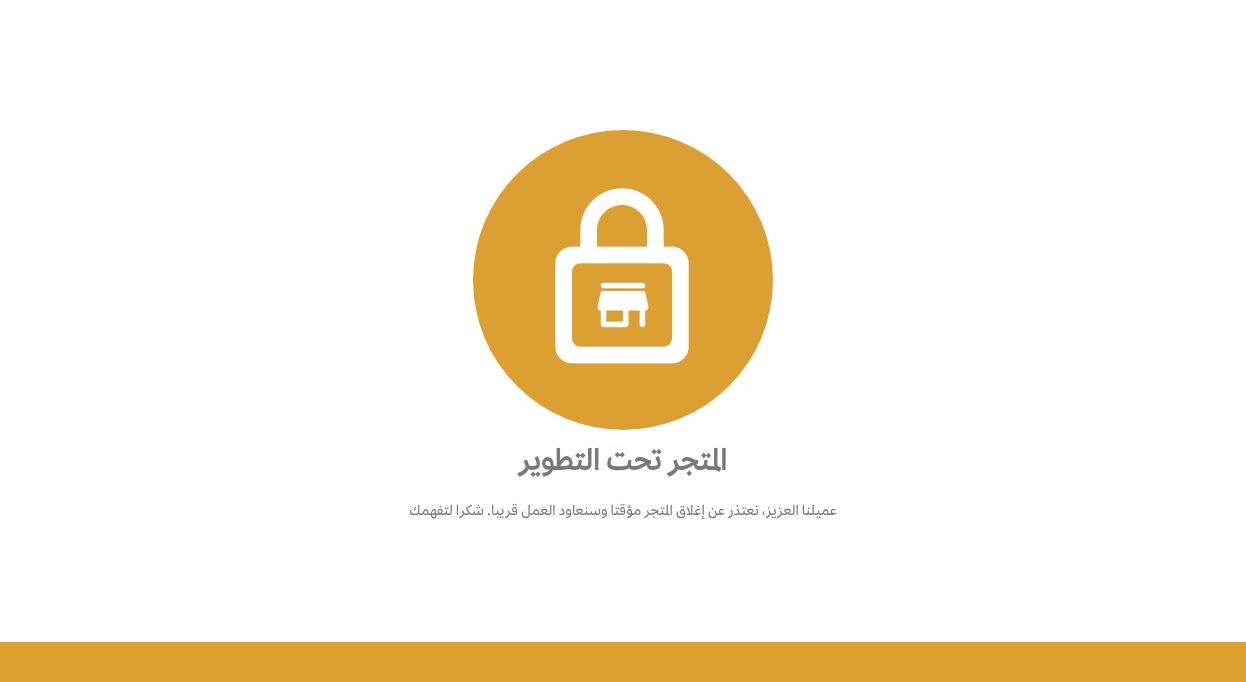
<!DOCTYPE html>
<meta charset="utf-8">
<style>body { margin: 0 } canvas { display: block }</style>
<canvas id="canvas" width="1246" height="682"></canvas>
<script type="module">
  const canvas = document.getElementById("canvas");
  const g = canvas.getContext("2d");
  g.miterLimit = 4;
  g.fontKerning = "normal";
  function drawText(s, x, y, [font, color]) {
    g.font = font;
    g.fillStyle = color;
    g.fillText(s, x, y);
  }
  function fillBox(x, y, w, h, color) {
    g.fillStyle = color;
    g.fillRect(x, y, w, h);
  }
  async function drawPicture(src, x, y, w, h) {
    const img = new Image();
    img.src = src;
    await img.decode();
    g.drawImage(img, x, y, w, h);
  }

  const s1 = ["bold 33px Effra", "#797979"];
  const s2 = ["16px Effra", "#797979"];

  fillBox(0, 0, 1246, 682, "#FFFFFF");
  g.fillStyle = "#DC9F32";
  g.beginPath();
  g.arc(623, 280, 150, 0, Math.PI * 2);
  g.fill();
  await drawPicture("pic1.png", 555, 188, 134, 176);
  g.direction = "rtl";
  drawText("المتجر تحت التطوير", 727, 470, s1);
  drawText("عميلنا العزيز، نعتذر عن إغلاق المتجر مؤقتا وسنعاود العمل قريبا. شكرا لتفهمك", 837, 515, s2);
  fillBox(0, 642, 1246, 40, "#DC9F32");
</script>
